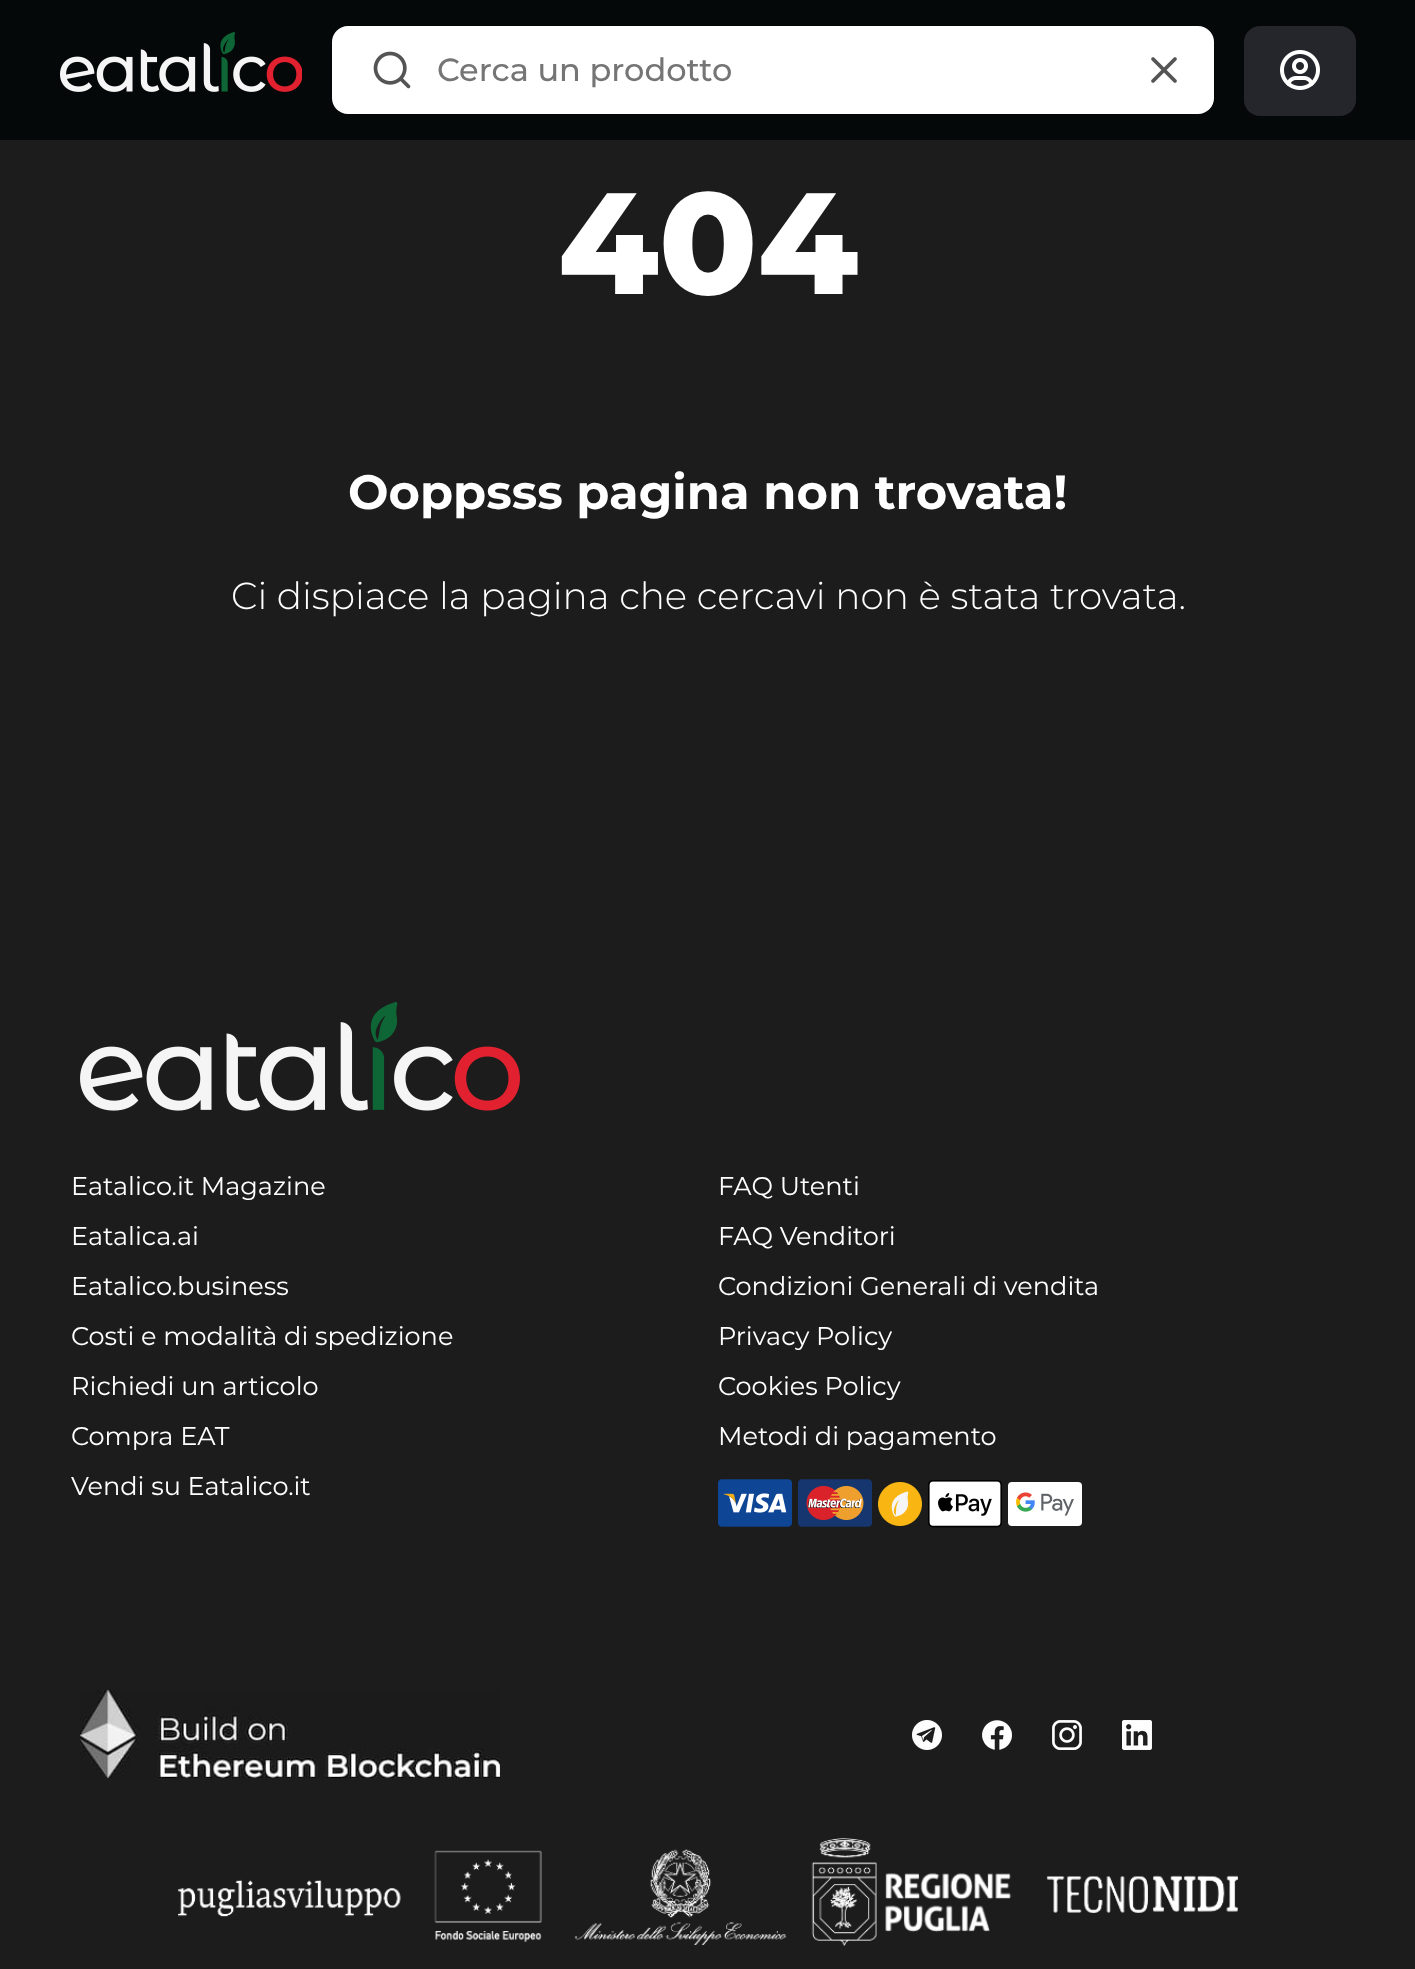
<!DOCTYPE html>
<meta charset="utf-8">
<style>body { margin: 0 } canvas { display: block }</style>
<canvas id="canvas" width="1415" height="1969"></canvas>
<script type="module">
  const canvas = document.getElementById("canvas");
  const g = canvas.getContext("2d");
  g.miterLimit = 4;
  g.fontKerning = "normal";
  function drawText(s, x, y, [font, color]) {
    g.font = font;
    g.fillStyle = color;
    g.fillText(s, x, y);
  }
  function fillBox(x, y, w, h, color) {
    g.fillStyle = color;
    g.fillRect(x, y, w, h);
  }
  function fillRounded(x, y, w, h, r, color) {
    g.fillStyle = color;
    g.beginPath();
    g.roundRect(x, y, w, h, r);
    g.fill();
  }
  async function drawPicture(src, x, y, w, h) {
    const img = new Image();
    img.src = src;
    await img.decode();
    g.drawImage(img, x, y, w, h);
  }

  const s1 = ["500 32px Montserrat", "#757575"];
  const s2 = ["800 144px Montserrat", "#FFFFFF"];
  const s3 = ["bold 48px Montserrat", "#FFFFFF"];
  const s4 = ["300 37.45px Montserrat", "#FFFFFF"];
  const s5 = ["25.6px Montserrat", "#FFFFFF"];

  fillBox(0, 0, 1415, 1969, "#1B1C1B");
  fillBox(0, 0, 1415, 140, "#040808");
  await drawPicture("pic1.png", 60, 32, 242, 60);
  fillRounded(332, 26, 882, 88, 16, "#FFFFFF");
  await drawPicture("pic2.png", 373, 51, 38, 38);
  drawText("Cerca un prodotto", 437, 81, s1);
  await drawPicture("pic3.png", 1151, 57, 26, 26);
  fillRounded(1244, 26, 112, 90, 16, "#25262B");
  await drawPicture("pic4.png", 1280, 50, 40, 40);
  drawText("404", 558, 294, s2);
  drawText("Ooppsss pagina non trovata!", 348, 509, s3);
  drawText("Ci dispiace la pagina che cercavi non è stata trovata.", 231, 609, s4);
  await drawPicture("pic5.png", 80, 1002, 440, 109);
  drawText("Eatalico.it Magazine", 71, 1195, s5);
  drawText("Eatalica.ai", 71, 1245, s5);
  drawText("Eatalico.business", 71, 1295, s5);
  drawText("Costi e modalità di spedizione", 71, 1345, s5);
  drawText("Richiedi un articolo", 71, 1395, s5);
  drawText("Compra EAT", 71, 1445, s5);
  drawText("Vendi su Eatalico.it", 71, 1495, s5);
  drawText("FAQ Utenti", 718, 1195, s5);
  drawText("FAQ Venditori", 718, 1245, s5);
  drawText("Condizioni Generali di vendita", 718, 1295, s5);
  drawText("Privacy Policy", 718, 1345, s5);
  drawText("Cookies Policy", 718, 1395, s5);
  drawText("Metodi di pagamento", 718, 1445, s5);
  await drawPicture("pic6.png", 718, 1479, 74, 48);
  await drawPicture("pic7.png", 798, 1479, 74, 48);
  await drawPicture("pic8.png", 878, 1482, 44, 44);
  await drawPicture("pic9.png", 928, 1480, 74, 48);
  fillRounded(1008, 1482, 74, 44, 4, "#FFFFFF");
  await drawPicture("pic10.png", 1016, 1492, 58, 24);
  await drawPicture("pic11.png", 80, 1690, 420, 88);
  await drawPicture("pic12.png", 912, 1720, 30, 30);
  await drawPicture("pic13.png", 982, 1720, 30, 30);
  await drawPicture("pic14.png", 1052, 1720, 30, 30);
  await drawPicture("pic15.png", 1122, 1720, 30, 30);
  await drawPicture("pic16.png", 178, 1838, 1060, 108);
</script>
